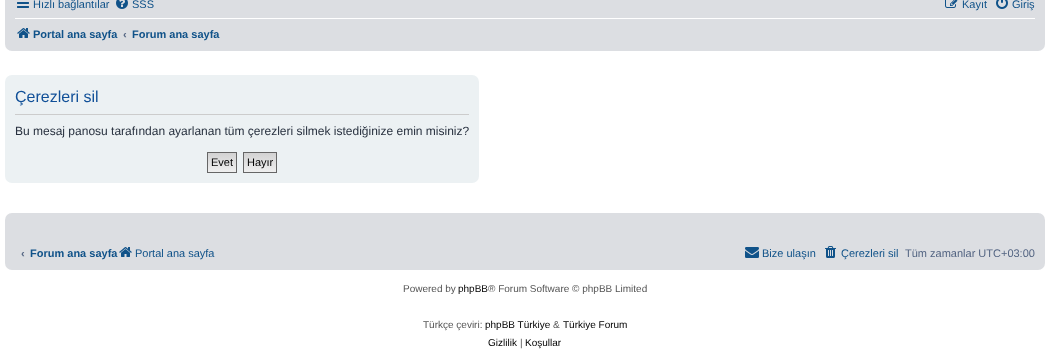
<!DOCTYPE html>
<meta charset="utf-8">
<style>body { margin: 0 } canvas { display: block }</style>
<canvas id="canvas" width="1050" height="357"></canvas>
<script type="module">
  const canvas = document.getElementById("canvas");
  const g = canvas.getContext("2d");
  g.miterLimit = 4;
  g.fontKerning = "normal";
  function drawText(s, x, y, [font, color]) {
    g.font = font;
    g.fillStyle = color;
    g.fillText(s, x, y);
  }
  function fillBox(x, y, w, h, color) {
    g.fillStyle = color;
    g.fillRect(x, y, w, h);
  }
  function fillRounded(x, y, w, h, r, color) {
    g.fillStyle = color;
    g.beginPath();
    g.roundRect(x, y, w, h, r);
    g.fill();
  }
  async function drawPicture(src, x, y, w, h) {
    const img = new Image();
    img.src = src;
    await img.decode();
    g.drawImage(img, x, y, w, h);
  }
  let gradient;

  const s1 = ["11px Liberation Sans", "#105289"];
  const s2 = ["bold 11px Liberation Sans", "#105289"];
  const s3 = ["bold 11px Liberation Sans", "#536482"];
  const s4 = ["16px Liberation Sans", "#115098"];
  const s5 = ["12px Liberation Sans", "#28313F"];
  const s6 = ["11px Liberation Sans", "#000000"];
  const s7 = ["11px Liberation Sans", "#536482"];
  const s8 = ["10px Liberation Sans", "#555555"];
  const s9 = ["10px Liberation Sans", "#000000"];

  fillBox(0, 0, 1050, 357, "#FFFFFF");
  fillRounded(5, -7, 1040, 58, 7, "#DCDEE2");
  await drawPicture("pic1.png", 17, 2, 12, 6);
  drawText("Hızlı bağlantılar", 33, 8, s1);
  await drawPicture("pic2.png", 116, 0, 12, 9);
  drawText("SSS", 132, 8, s1);
  await drawPicture("pic3.png", 945, 0, 14, 8);
  drawText("Kayıt", 962, 8, s1);
  await drawPicture("pic4.png", 996, 0, 12, 9);
  drawText("Giriş", 1012, 8, s1);
  fillBox(15, 18, 1020, 1, "#FFFFFF");
  await drawPicture("pic5.png", 17, 28, 13, 10);
  drawText("Portal ana sayfa", 33, 38, s2);
  drawText("‹", 123, 38, s3);
  drawText("Forum ana sayfa", 132, 38, s2);
  fillRounded(5, 75, 474, 108, 7, "#ECF1F3");
  fillBox(15, 114, 454, 1, "#CCCCCC");
  drawText("Çerezleri sil", 15, 102, s4);
  drawText("Bu mesaj panosu tarafından ayarlanan tüm çerezleri silmek istediğinize emin misiniz?", 15, 135, s5);
  gradient = g.createLinearGradient(222, 153, 222, 172);
  gradient.addColorStop(0, "#D2D2D2");
  gradient.addColorStop(1, "#EFEFEF");
  g.fillStyle = gradient;
  g.fillRect(208, 153, 28, 19);
  g.strokeStyle = "#666666";
  g.strokeRect(207.5, 152.5, 29, 20);
  drawText("Evet", 211, 166, s6);
  gradient = g.createLinearGradient(260, 153, 260, 172);
  gradient.addColorStop(0, "#D2D2D2");
  gradient.addColorStop(1, "#EFEFEF");
  g.fillStyle = gradient;
  g.fillRect(244, 153, 32, 19);
  g.strokeRect(243.5, 152.5, 33, 20);
  drawText("Hayır", 247, 166, s6);
  fillRounded(5, 213, 1040, 57, 7, "#DCDEE2");
  drawText("‹", 21, 257, s3);
  drawText("Forum ana sayfa", 30, 257, s2);
  await drawPicture("pic5.png", 119, 247, 13, 10);
  drawText("Portal ana sayfa", 135, 257, s1);
  await drawPicture("pic6.png", 745, 247, 14, 11);
  drawText("Bize ulaşın", 762, 257, s1);
  await drawPicture("pic7.png", 825, 246, 11, 12);
  drawText("Çerezleri sil", 841, 257, s1);
  drawText("Tüm zamanlar UTC+03:00", 905, 257, s7);
  drawText("Powered by", 403, 292, s8);
  drawText("phpBB", 458, 292, s9);
  drawText("® Forum Software © phpBB Limited", 488, 292, s8);
  drawText("Türkçe çeviri:", 423, 328, s8);
  drawText("phpBB Türkiye", 485, 328, s9);
  drawText("&", 553, 328, s8);
  drawText("Türkiye Forum", 563, 328, s9);
  drawText("Gizlilik", 488, 346, s9);
  drawText("|", 520, 346, s8);
  drawText("Koşullar", 525, 346, s9);
</script>
